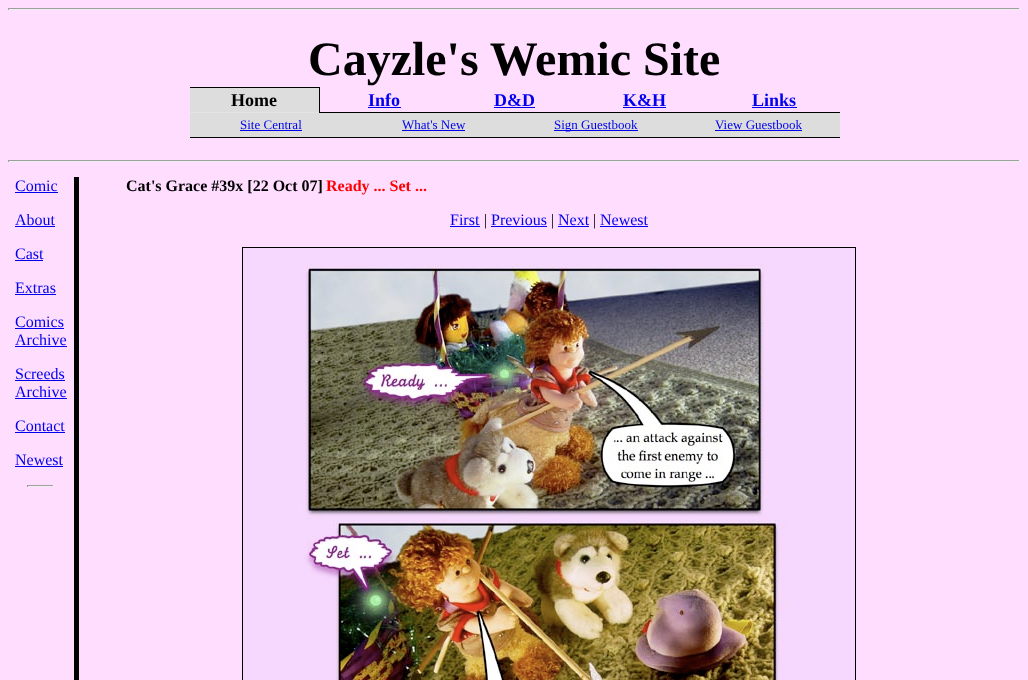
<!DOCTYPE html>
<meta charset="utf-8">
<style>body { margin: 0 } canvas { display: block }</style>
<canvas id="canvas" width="1028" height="680"></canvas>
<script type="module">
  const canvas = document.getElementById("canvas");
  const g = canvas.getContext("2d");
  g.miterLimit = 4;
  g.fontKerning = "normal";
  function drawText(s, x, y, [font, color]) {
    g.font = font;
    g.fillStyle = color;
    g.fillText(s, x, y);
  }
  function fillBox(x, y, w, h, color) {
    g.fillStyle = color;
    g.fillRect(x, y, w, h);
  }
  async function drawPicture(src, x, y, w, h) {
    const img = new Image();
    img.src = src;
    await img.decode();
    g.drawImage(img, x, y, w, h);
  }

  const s1 = ["bold 48px Liberation Serif", "#000000"];
  const s2 = ["bold 18px Liberation Serif", "#000000"];
  const s3 = ["bold 18px Liberation Serif", "#0000EE"];
  const s4 = ["13px Liberation Serif", "#0000EE"];
  const s5 = ["16px Liberation Serif", "#0000EE"];
  const s6 = ["bold 16px Liberation Serif", "#000000"];
  const s7 = ["bold 16px Liberation Serif", "#FF0000"];
  const s8 = ["16px Liberation Serif", "#000000"];

  fillBox(0, 0, 1028, 680, "#FFDDFF");
  fillBox(8, 8, 1012, 1, "#9F9F9F");
  fillBox(1019, 8, 1, 2, "#EEEEEE");
  fillBox(8, 9, 1012, 1, "#EEEEEE");
  fillBox(8, 8, 1, 2, "#9F9F9F");
  drawText("Cayzle's Wemic Site", 308, 75, s1);
  fillBox(190, 87, 129, 1, "#000000");
  fillBox(319, 87, 1, 26, "#000000");
  fillBox(190, 88, 129, 24, "#DDDDDD");
  drawText("Home", 231, 106, s2);
  drawText("Info", 368, 106, s3);
  fillBox(368, 107, 33, 1, "#0000EE");
  drawText("D&D", 494, 106, s3);
  fillBox(494, 107, 41, 1, "#0000EE");
  drawText("K&H", 623, 106, s3);
  fillBox(623, 107, 43, 1, "#0000EE");
  drawText("Links", 752, 106, s3);
  fillBox(752, 107, 45, 1, "#0000EE");
  fillBox(190, 112, 129, 1, "#E4E4E4");
  fillBox(320, 112, 520, 1, "#000000");
  fillBox(190, 113, 650, 24, "#DDDDDD");
  drawText("Site Central", 240, 129, s4);
  fillBox(240, 130, 62, 1, "#0000EE");
  drawText("What's New", 402, 129, s4);
  fillBox(402, 130, 63, 1, "#0000EE");
  fillBox(554, 130, 84, 1, "#0000EE");
  drawText("Sign Guestbook", 554, 129, s4);
  drawText("View Guestbook", 715, 129, s4);
  fillBox(715, 130, 87, 1, "#0000EE");
  fillBox(190, 137, 650, 1, "#000000");
  fillBox(8, 160, 1012, 1, "#9F9F9F");
  fillBox(1019, 160, 1, 2, "#EEEEEE");
  fillBox(8, 161, 1012, 1, "#EEEEEE");
  fillBox(8, 160, 1, 2, "#9F9F9F");
  drawText("Comic", 15, 191, s5);
  fillBox(15, 192, 43, 1, "#0000EE");
  drawText("About", 15, 225, s5);
  fillBox(15, 226, 40, 1, "#0000EE");
  drawText("Cast", 15, 259, s5);
  fillBox(15, 260, 28, 1, "#0000EE");
  drawText("Extras", 15, 293, s5);
  fillBox(15, 294, 41, 1, "#0000EE");
  drawText("Comics", 15, 327, s5);
  fillBox(15, 328, 49, 1, "#0000EE");
  drawText("Archive", 15, 345, s5);
  fillBox(15, 346, 52, 1, "#0000EE");
  drawText("Screeds", 15, 379, s5);
  fillBox(15, 380, 50, 1, "#0000EE");
  drawText("Archive", 15, 397, s5);
  fillBox(15, 398, 52, 1, "#0000EE");
  drawText("Contact", 15, 431, s5);
  fillBox(15, 432, 50, 1, "#0000EE");
  drawText("Newest", 15, 465, s5);
  fillBox(15, 466, 48, 1, "#0000EE");
  fillBox(27, 485, 27, 1, "#9F9F9F");
  fillBox(53, 485, 1, 2, "#EEEEEE");
  fillBox(27, 486, 27, 1, "#EEEEEE");
  fillBox(27, 485, 1, 2, "#9F9F9F");
  fillBox(74, 177, 5, 503, "#000000");
  drawText("Cat's Grace #39x [22 Oct 07]", 126, 191, s6);
  drawText("Ready ... Set ...", 326, 191, s7);
  drawText("First", 450, 225, s5);
  fillBox(450, 226, 30, 1, "#0000EE");
  drawText("|", 484, 225, s8);
  drawText("Previous", 491, 225, s5);
  fillBox(491, 226, 56, 1, "#0000EE");
  drawText("|", 551, 225, s8);
  drawText("Next", 558, 225, s5);
  fillBox(558, 226, 31, 1, "#0000EE");
  drawText("|", 593, 225, s8);
  drawText("Newest", 600, 225, s5);
  fillBox(600, 226, 48, 1, "#0000EE");
  g.strokeStyle = "#000000";
  g.strokeRect(242.5, 247.5, 613, 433);
  await drawPicture("pic1.png", 243, 248, 612, 432);
</script>
